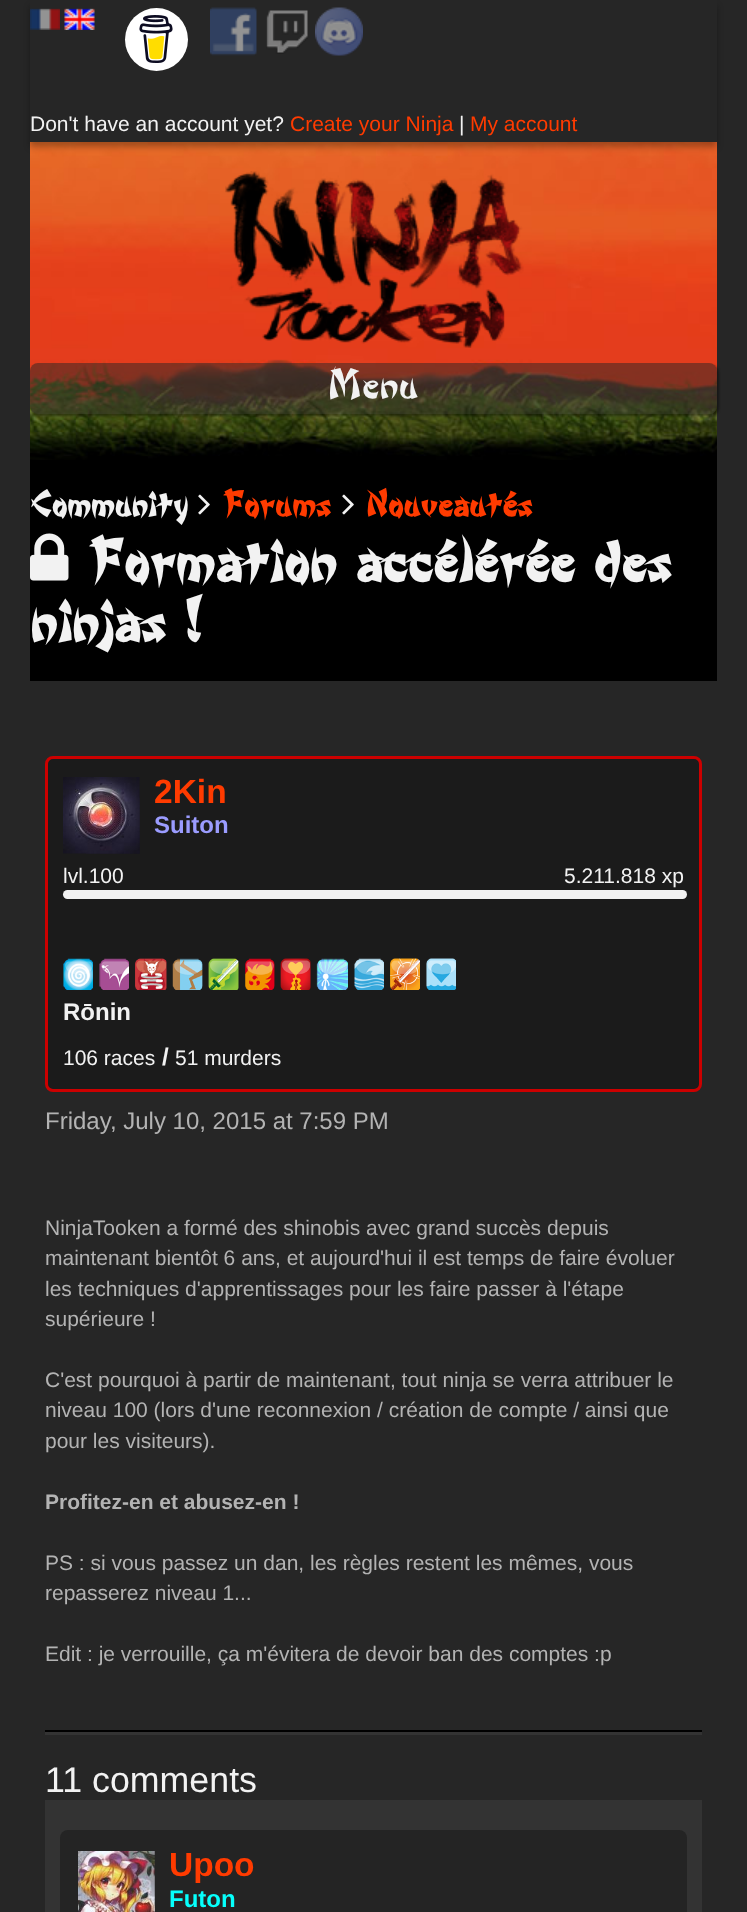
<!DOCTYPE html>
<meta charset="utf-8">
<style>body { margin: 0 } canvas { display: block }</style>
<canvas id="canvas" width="747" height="1912"></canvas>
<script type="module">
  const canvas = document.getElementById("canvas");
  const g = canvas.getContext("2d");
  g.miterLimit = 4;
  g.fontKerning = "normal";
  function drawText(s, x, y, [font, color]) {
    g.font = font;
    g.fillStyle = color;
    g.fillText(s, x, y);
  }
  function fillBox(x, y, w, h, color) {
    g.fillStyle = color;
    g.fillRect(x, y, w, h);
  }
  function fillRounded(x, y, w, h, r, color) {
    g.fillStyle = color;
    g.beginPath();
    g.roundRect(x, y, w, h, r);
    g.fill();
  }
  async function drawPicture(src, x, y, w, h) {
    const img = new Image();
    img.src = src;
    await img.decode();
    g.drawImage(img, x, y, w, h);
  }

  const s1 = ["21px Liberation Sans", "#F2F2F2"];
  const s2 = ["21px Liberation Sans", "#FF3B00"];
  const s3 = ["42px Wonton", "#F2F2F2"];
  const s4 = ["bold 35.75px Wonton", "#F2F2F2"];
  const s5 = ["bold 35.75px Wonton", "#FF3B00"];
  const s6 = ["bold 59.75px Wonton", "#F2F2F2"];
  const s7 = ["bold 33.5px Liberation Sans", "#FF3B00"];
  const s8 = ["bold 24px Liberation Sans", "#9B9CFF"];
  const s9 = ["bold 24px Liberation Sans", "#F2F2F2"];
  const s10 = ["24px Liberation Sans", "#B3B3B3"];
  const s11 = ["21px Liberation Sans", "#B3B3B3"];
  const s12 = ["bold 21px Liberation Sans", "#B3B3B3"];
  const s13 = ["35.75px Liberation Sans", "#F2F2F2"];
  const s14 = ["bold 24px Liberation Sans", "#06FFFC"];

  fillBox(0, 0, 747, 1912, "#262626");
  await drawPicture("pic7.png", 30, 142, 687, 318);
  g.save();
  g.beginPath();
  g.moveTo(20, 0);
  g.lineTo(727, 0);
  g.lineTo(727, 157);
  g.lineTo(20, 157);
  g.closePath();
  g.moveTo(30, 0);
  g.lineTo(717, 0);
  g.lineTo(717, 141);
  g.lineTo(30, 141);
  g.closePath();
  g.clip("evenodd");
  g.fillStyle = "rgba(0, 0, 0, 0.3)";
  g.filter = "blur(3px)";
  g.beginPath();
  g.rect(30, 6, 687, 141);
  g.fill();
  g.filter = "none";
  g.restore();
  fillBox(30, 141, 687, 1, "#262626");
  await drawPicture("pic1.png", 30, 8, 30, 22);
  await drawPicture("pic2.png", 64, 8, 31, 22);
  g.fillStyle = "#FFFFFF";
  g.beginPath();
  g.arc(156.5, 39.5, 31.5, 0, Math.PI * 2);
  g.fill();
  await drawPicture("pic3.png", 139, 15, 34, 48);
  await drawPicture("pic4.png", 210, 7, 47, 49);
  await drawPicture("pic5.png", 266, 10, 42, 44);
  await drawPicture("pic6.png", 315, 7, 48, 49);
  drawText("Don't have an account yet?", 30, 131, s1);
  drawText("Create your Ninja", 290, 131, s2);
  drawText("|", 459, 131, s1);
  drawText("My account", 470, 131, s2);
  await drawPicture("pic8.png", 225, 171, 299, 177);
  g.save();
  g.beginPath();
  g.moveTo(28, 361);
  g.lineTo(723, 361);
  g.lineTo(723, 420);
  g.lineTo(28, 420);
  g.closePath();
  g.moveTo(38, 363);
  g.lineTo(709, 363);
  g.bezierCurveTo(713.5, 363, 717, 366.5, 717, 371);
  g.lineTo(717, 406);
  g.bezierCurveTo(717, 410.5, 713.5, 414, 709, 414);
  g.lineTo(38, 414);
  g.bezierCurveTo(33.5, 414, 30, 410.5, 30, 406);
  g.lineTo(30, 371);
  g.bezierCurveTo(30, 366.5, 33.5, 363, 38, 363);
  g.closePath();
  g.clip("evenodd");
  g.fillStyle = "rgba(0, 0, 0, 0.4)";
  g.filter = "blur(1px)";
  g.beginPath();
  g.roundRect(32, 365, 687, 51, 8);
  g.fill();
  g.filter = "none";
  g.restore();
  fillRounded(30, 363, 687, 51, 8, "rgba(38, 38, 38, 0.5)");
  drawText("Menu", 328, 398, s3);
  fillBox(30, 460, 687, 221, "#000000");
  drawText("Community", 30, 516, s4);
  await drawPicture("pic9.png", 198, 494, 12, 21);
  drawText("Forums", 222, 516, s5);
  await drawPicture("pic9.png", 342, 494, 12, 21);
  drawText("Nouveautés", 366, 516, s5);
  await drawPicture("pic10.png", 30, 533, 39, 48);
  drawText("Formation accélérée des", 87, 581, s6);
  drawText("ninjas !", 30, 641, s6);
  g.fillStyle = "#1B1B1B";
  g.beginPath();
  g.roundRect(46.5, 757.5, 654, 333, 6.5);
  g.fill();
  g.strokeStyle = "#CC0000";
  g.lineWidth = 3;
  g.stroke();
  await drawPicture("pic11.png", 63, 777, 77, 77);
  await drawPicture("pic12.png", 86, 798, 54, 56);
  drawText("2Kin", 154, 803, s7);
  drawText("Suiton", 154, 833, s8);
  drawText("lvl.100", 63, 883, s1);
  drawText("5.211.818 xp", 564, 883, s1);
  fillRounded(63, 890, 624, 9, 4.5, "#F2F2F2");
  await drawPicture("pic13.png", 63, 958, 30, 32);
  await drawPicture("pic14.png", 99, 958, 30, 32);
  await drawPicture("pic15.png", 135, 958, 32, 32);
  await drawPicture("pic16.png", 172, 958, 31, 32);
  await drawPicture("pic17.png", 208, 958, 31, 32);
  await drawPicture("pic18.png", 245, 958, 30, 32);
  await drawPicture("pic19.png", 280, 958, 31, 32);
  await drawPicture("pic20.png", 316, 958, 32, 32);
  await drawPicture("pic21.png", 354, 958, 30, 32);
  await drawPicture("pic22.png", 390, 958, 30, 32);
  await drawPicture("pic23.png", 426, 958, 30, 32);
  drawText("Rōnin", 63, 1020, s9);
  drawText("106 races", 63, 1065, s1);
  drawText("/", 162, 1065, s9);
  drawText("51 murders", 175, 1065, s1);
  drawText("Friday, July 10, 2015 at 7:59 PM", 45, 1129, s10);
  drawText("NinjaTooken a formé des shinobis avec grand succès depuis", 45, 1235, s11);
  drawText("maintenant bientôt 6 ans, et aujourd'hui il est temps de faire évoluer", 45, 1265, s11);
  drawText("les techniques d'apprentissages pour les faire passer à l'étape", 45, 1296, s11);
  drawText("supérieure !", 45, 1326, s11);
  drawText("C'est pourquoi à partir de maintenant, tout ninja se verra attribuer le", 45, 1387, s11);
  drawText("niveau 100 (lors d'une reconnexion / création de compte / ainsi que", 45, 1417, s11);
  drawText("pour les visiteurs).", 45, 1448, s11);
  drawText("Profitez-en et abusez-en !", 45, 1509, s12);
  drawText("PS : si vous passez un dan, les règles restent les mêmes, vous", 45, 1570, s11);
  drawText("repasserez niveau 1...", 45, 1600, s11);
  drawText("Edit : je verrouille, ça m'évitera de devoir ban des comptes :p", 45, 1661, s11);
  fillBox(45, 1732, 657, 3, "#333333");
  fillBox(45, 1730, 657, 2, "#000000");
  drawText("11 comments", 45, 1792, s13);
  fillBox(45, 1800, 657, 112, "#333333");
  fillRounded(60, 1830, 627, 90, 8, "#242424");
  await drawPicture("pic24.png", 78, 1851, 77, 61);
  await drawPicture("pic25.png", 154, 1851, 1, 61);
  drawText("Upoo", 169, 1876, s7);
  drawText("Futon", 169, 1907, s14);
</script>
